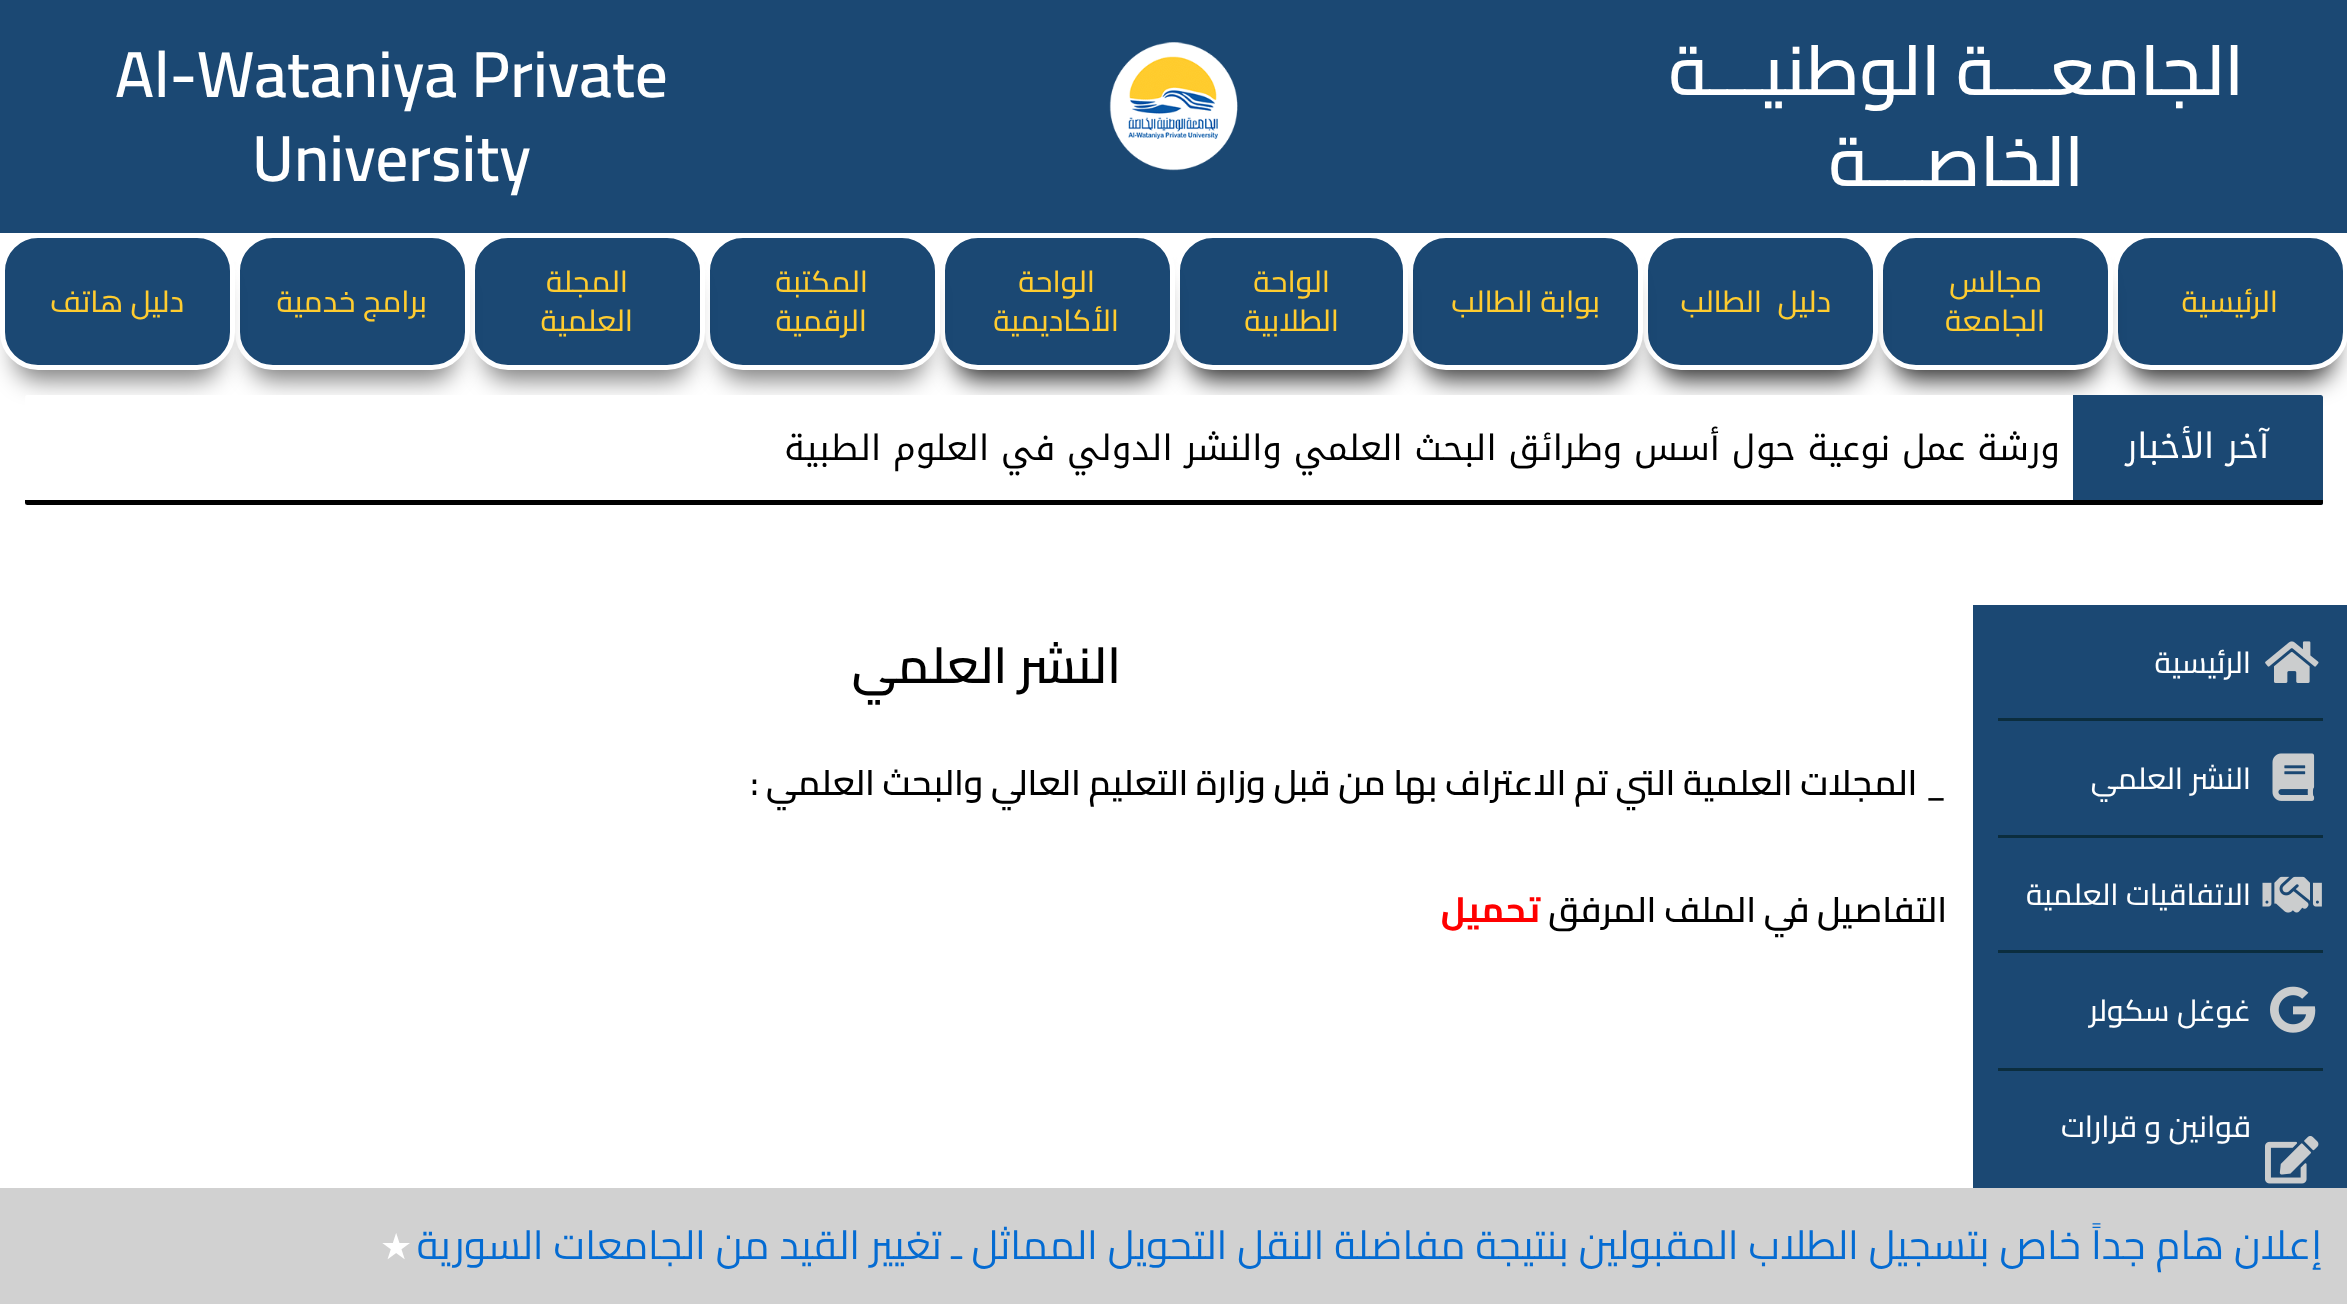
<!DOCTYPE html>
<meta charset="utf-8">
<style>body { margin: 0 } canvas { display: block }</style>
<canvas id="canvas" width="2347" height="1304"></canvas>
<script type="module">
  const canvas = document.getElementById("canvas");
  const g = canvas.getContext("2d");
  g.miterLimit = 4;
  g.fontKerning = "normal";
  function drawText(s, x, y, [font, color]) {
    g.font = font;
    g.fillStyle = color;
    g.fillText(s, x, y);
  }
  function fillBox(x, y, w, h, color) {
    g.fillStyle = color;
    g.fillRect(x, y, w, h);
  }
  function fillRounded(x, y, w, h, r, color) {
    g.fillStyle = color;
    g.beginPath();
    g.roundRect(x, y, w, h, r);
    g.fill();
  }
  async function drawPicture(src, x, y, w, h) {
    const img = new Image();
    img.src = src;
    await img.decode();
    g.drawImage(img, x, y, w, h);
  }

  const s1 = ["600 70px Cairo", "#FFFFFF"];
  const s2 = ["600 65px Cairo", "#FFFFFF"];
  const s3 = ["500 30px Cairo", "#FFCC2F"];
  const s4 = ["35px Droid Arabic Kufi", "#FFFFFF"];
  const s5 = ["35px Droid Arabic Kufi", "#000000"];
  const s6 = ["500 30px Cairo", "#FFFFFF"];
  const s7 = ["600 50px Cairo", "#000000"];
  const s8 = ["600 35px Cairo", "#000000"];
  const s9 = ["bold 35px Cairo", "#FF0000"];
  const s10 = ["40px Cairo", "#046BD2"];
  const s11 = ["36px DejaVu Sans", "#FFFFFF"];

  fillBox(0, 0, 2347, 1304, "#FFFFFF");
  fillBox(0, 0, 2347, 233, "#1B4873");
  g.direction = "rtl";
  drawText("الجامعـــة الوطنيـــة", 2244, 95, s1);
  drawText("الخاصـــة", 2084, 186, s1);
  await drawPicture("pic1.png", 1109, 42, 129, 129);
  g.direction = "ltr";
  drawText("Al-Wataniya Private", 115, 97, s2);
  drawText("University", 252, 181, s2);
  g.fillStyle = "rgba(0, 0, 0, 0.8)";
  g.filter = "blur(12.5px)";
  g.beginPath();
  g.roundRect(2128, 273, 205, 107, 23);
  g.fill();
  g.filter = "none";
  g.fillStyle = "#1B4873";
  g.beginPath();
  g.roundRect(2115.5, 235.5, 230, 132, 35.5);
  g.fill();
  g.strokeStyle = "#FFFFFF";
  g.lineWidth = 5;
  g.stroke();
  g.direction = "rtl";
  drawText("الرئيسية", 2278, 312, s3);
  g.fillStyle = "rgba(0, 0, 0, 0.8)";
  g.filter = "blur(12.5px)";
  g.beginPath();
  g.roundRect(1893, 273, 205, 107, 23);
  g.fill();
  g.filter = "none";
  g.fillStyle = "#1B4873";
  g.beginPath();
  g.roundRect(1880.5, 235.5, 230, 132, 35.5);
  g.fill();
  g.stroke();
  drawText("مجالس", 2042, 292, s3);
  drawText("الجامعة", 2045, 331, s3);
  g.fillStyle = "rgba(0, 0, 0, 0.8)";
  g.filter = "blur(12.5px)";
  g.beginPath();
  g.roundRect(1658, 273, 205, 107, 23);
  g.fill();
  g.filter = "none";
  g.fillStyle = "#1B4873";
  g.beginPath();
  g.roundRect(1645.5, 235.5, 230, 132, 35.5);
  g.fill();
  g.stroke();
  g.letterSpacing = "-1.5px";
  drawText("دليل", 1831, 312, s3);
  drawText("الطالب", 1762, 312, s3);
  g.fillStyle = "rgba(0, 0, 0, 0.75)";
  g.filter = "blur(12.5px)";
  g.beginPath();
  g.roundRect(1423, 273, 205, 107, 23);
  g.fill();
  g.filter = "none";
  g.fillStyle = "#1B4873";
  g.beginPath();
  g.roundRect(1410.5, 235.5, 230, 132, 35.5);
  g.fill();
  g.stroke();
  g.letterSpacing = "0px";
  drawText("بوابة الطالب", 1600, 312, s3);
  g.fillStyle = "rgba(0, 0, 0, 0.8)";
  g.filter = "blur(12.5px)";
  g.beginPath();
  g.roundRect(1190, 273, 203, 107, 23);
  g.fill();
  g.filter = "none";
  g.fillStyle = "#1B4873";
  g.beginPath();
  g.roundRect(1177.5, 235.5, 228, 132, 35.5);
  g.fill();
  g.stroke();
  drawText("الواحة", 1330, 292, s3);
  drawText("الطلابية", 1339, 331, s3);
  g.fillStyle = "rgba(0, 0, 0, 0.8)";
  g.filter = "blur(12.5px)";
  g.beginPath();
  g.roundRect(955, 273, 205, 107, 23);
  g.fill();
  g.filter = "none";
  g.fillStyle = "#1B4873";
  g.beginPath();
  g.roundRect(942.5, 235.5, 230, 132, 35.5);
  g.fill();
  g.stroke();
  drawText("الواحة", 1095, 292, s3);
  drawText("الأكاديمية", 1119, 331, s3);
  g.fillStyle = "rgba(0, 0, 0, 0.5)";
  g.filter = "blur(12.5px)";
  g.beginPath();
  g.roundRect(720, 273, 205, 107, 23);
  g.fill();
  g.filter = "none";
  g.fillStyle = "#1B4873";
  g.beginPath();
  g.roundRect(707.5, 235.5, 230, 132, 35.5);
  g.fill();
  g.stroke();
  drawText("المكتبة", 868, 292, s3);
  drawText("الرقمية", 867, 331, s3);
  g.fillStyle = "rgba(0, 0, 0, 0.5)";
  g.filter = "blur(12.5px)";
  g.beginPath();
  g.roundRect(485, 273, 205, 107, 23);
  g.fill();
  g.filter = "none";
  g.fillStyle = "#1B4873";
  g.beginPath();
  g.roundRect(472.5, 235.5, 230, 132, 35.5);
  g.fill();
  g.stroke();
  drawText("المجلة", 628, 292, s3);
  drawText("العلمية", 633, 331, s3);
  g.fillStyle = "rgba(0, 0, 0, 0.5)";
  g.filter = "blur(12.5px)";
  g.beginPath();
  g.roundRect(250, 273, 205, 107, 23);
  g.fill();
  g.filter = "none";
  g.fillStyle = "#1B4873";
  g.beginPath();
  g.roundRect(237.5, 235.5, 230, 132, 35.5);
  g.fill();
  g.stroke();
  drawText("برامج خدمية", 427, 312, s3);
  g.fillStyle = "rgba(0, 0, 0, 0.5)";
  g.filter = "blur(12.5px)";
  g.beginPath();
  g.roundRect(15, 273, 205, 107, 23);
  g.fill();
  g.filter = "none";
  g.fillStyle = "#1B4873";
  g.beginPath();
  g.roundRect(2.5, 235.5, 230, 132, 35.5);
  g.fill();
  g.stroke();
  drawText("دليل هاتف", 184, 312, s3);
  fillRounded(25, 395, 2298, 110, 2.5, "#FFFFFF");
  g.fillStyle = "#1B4873";
  g.beginPath();
  g.roundRect(2073, 395, 250, 110, [0, 2.5, 2.5, 0]);
  g.fill();
  drawText("آخر الأخبار", 2269, 458, s4);
  g.fillStyle = "#000000";
  g.beginPath();
  g.roundRect(25, 500, 2298, 5, [0, 0, 2.5, 2.5]);
  g.fill();
  drawText("ورشة عمل نوعية حول أسس وطرائق البحث العلمي", 2060, 460, s5);
  drawText("والنشر الدولي في العلوم الطبية", 1282, 460, s5);
  fillBox(1973, 605, 374, 583, "#1B4873");
  await drawPicture("pic2.png", 2265, 641, 54, 42);
  drawText("الرئيسية", 2251, 673, s6);
  fillBox(1998, 718, 325, 3, "#0B2D3E");
  await drawPicture("pic3.png", 2272, 753, 43, 48);
  drawText("النشر العلمي", 2251, 789, s6);
  fillBox(1998, 835, 325, 3, "#0B2D3E");
  await drawPicture("pic4.png", 2262, 876, 60, 37);
  drawText("الاتفاقيات العلمية", 2251, 905, s6);
  fillBox(1998, 950, 325, 3, "#0B2D3E");
  await drawPicture("pic5.png", 2270, 986, 46, 47);
  drawText("غوغل سكولر", 2251, 1021, s6);
  fillBox(1998, 1068, 325, 3, "#0B2D3E");
  drawText("قوانين و قرارات", 2251, 1137, s6);
  await drawPicture("pic6.png", 2265, 1136, 54, 48);
  drawText("النشر العلمي", 1121, 683, s7);
  drawText("_ المجلات العلمية التي تم الاعتراف بها من قبل وزارة التعليم العالي والبحث العلمي :", 1947, 795, s8);
  drawText("التفاصيل في الملف المرفق", 1947, 922, s8);
  drawText("تحميل", 1540, 922, s9);
  fillBox(0, 1188, 2347, 116, "#D1D1D1");
  drawText("إعلان هام جداً خاص بتسجيل الطلاب المقبولين بنتيجة مفاضلة النقل التحويل المماثل ـ تغيير القيد من الجامعات السورية", 2322, 1259, s10);
  g.direction = "ltr";
  drawText("★", 380, 1259, s11);
</script>
